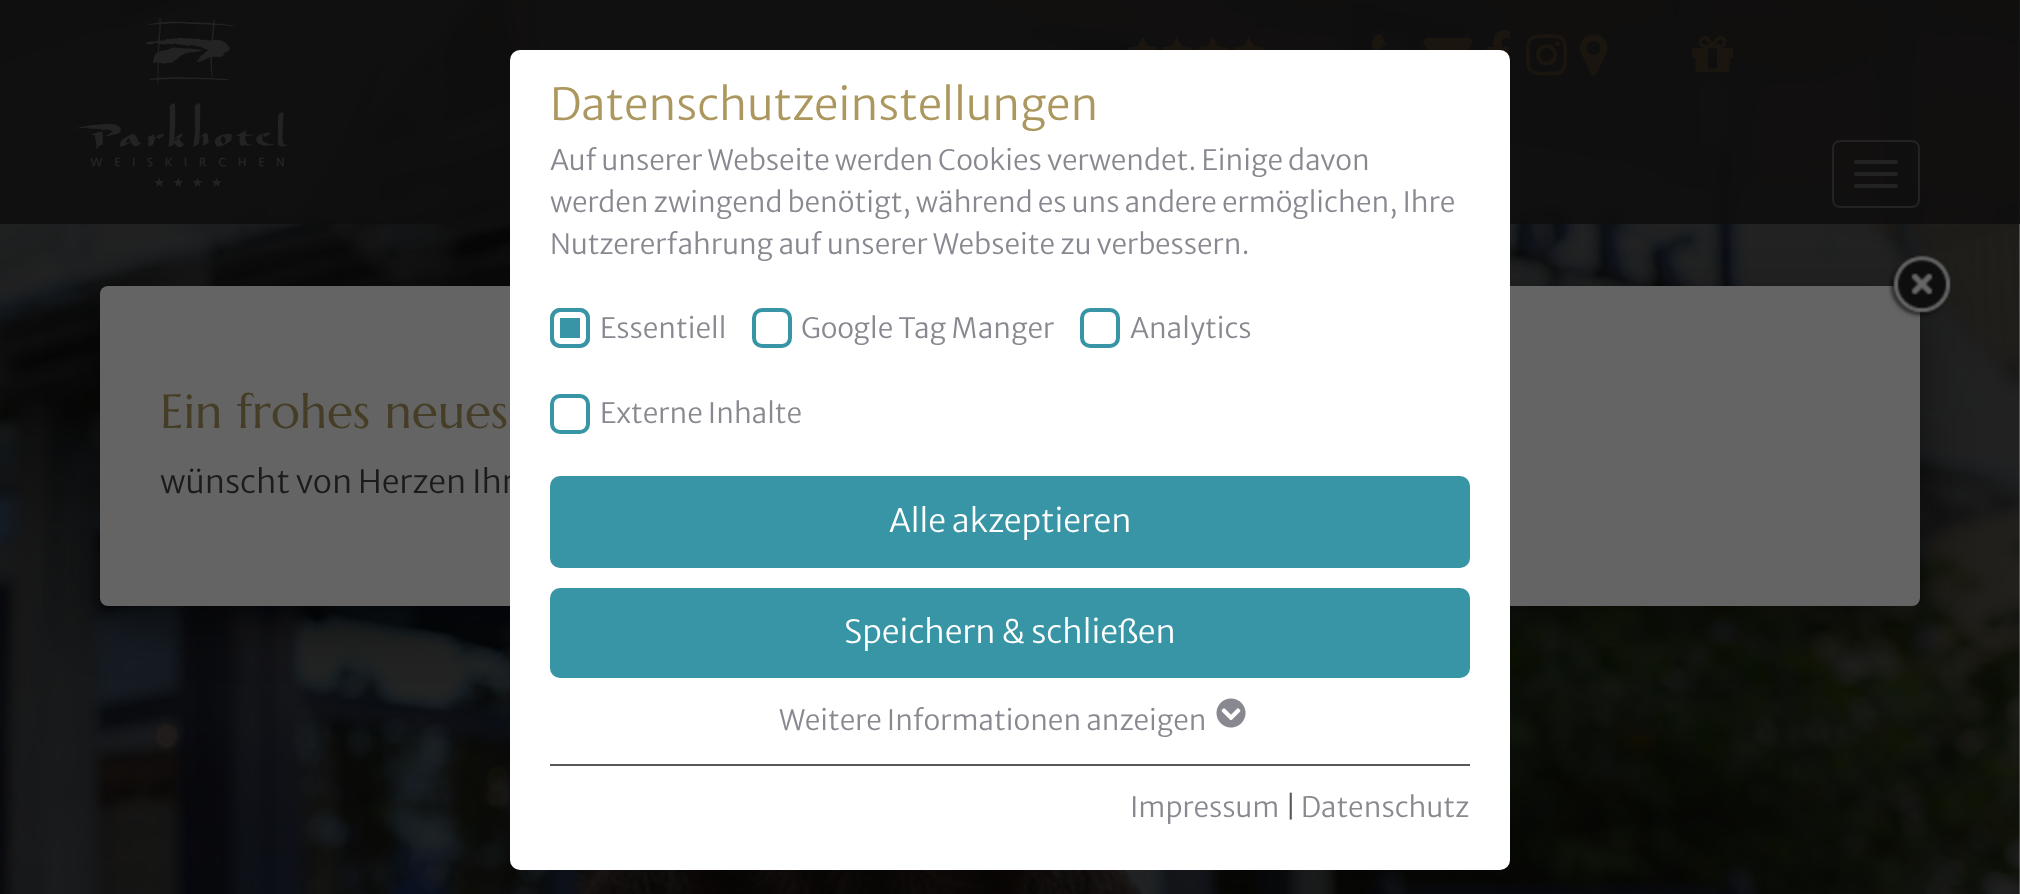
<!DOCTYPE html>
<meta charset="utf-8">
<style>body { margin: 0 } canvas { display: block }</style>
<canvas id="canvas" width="2020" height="894"></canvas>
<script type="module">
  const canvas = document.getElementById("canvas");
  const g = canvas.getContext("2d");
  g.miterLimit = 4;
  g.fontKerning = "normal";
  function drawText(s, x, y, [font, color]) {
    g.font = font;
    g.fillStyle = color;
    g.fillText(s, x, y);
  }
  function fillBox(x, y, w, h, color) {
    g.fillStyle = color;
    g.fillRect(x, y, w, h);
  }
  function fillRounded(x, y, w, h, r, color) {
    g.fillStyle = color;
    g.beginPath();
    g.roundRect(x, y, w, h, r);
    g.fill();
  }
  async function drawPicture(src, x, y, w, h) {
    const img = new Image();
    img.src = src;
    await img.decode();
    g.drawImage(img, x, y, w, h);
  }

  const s1 = ["48px Marcellus", "#453D26"];
  const s2 = ["300 32px Merriweather Sans", "#1B1B1B"];
  const s3 = ["300 44px Merriweather Sans", "#AC985E"];
  const s4 = ["300 28px Merriweather Sans", "#888890"];
  const s5 = ["300 32px Merriweather Sans", "#FFFFFF"];
  const s6 = ["300 28px Merriweather Sans", "#58585A"];

  fillBox(0, 0, 2020, 894, "#FFFFFF");
  await drawPicture("pic1.png", 0, 0, 2020, 894);
  fillBox(0, 0, 2020, 224, "rgba(15, 14, 14, 0.9)");
  await drawPicture("pic2.png", 72, 18, 216, 169);
  await drawPicture("pic3.png", 1128, 37, 30, 13);
  await drawPicture("pic4.png", 1162, 37, 30, 13);
  await drawPicture("pic5.png", 1198, 37, 30, 13);
  await drawPicture("pic6.png", 1234, 37, 30, 13);
  await drawPicture("pic7.png", 1372, 34, 14, 16);
  await drawPicture("pic8.png", 1424, 37, 48, 13);
  g.fillStyle = "#1A160F";
  g.beginPath();
  g.moveTo(1510, 31);
  g.lineTo(1510, 38);
  g.bezierCurveTo(1501, 38, 1502, 39, 1502, 47);
  g.lineTo(1509, 47);
  g.lineTo(1508, 55);
  g.lineTo(1502, 55);
  g.lineTo(1502, 75);
  g.lineTo(1493, 75);
  g.lineTo(1493, 55);
  g.lineTo(1487, 55);
  g.lineTo(1487, 47);
  g.lineTo(1493, 47);
  g.bezierCurveTo(1493, 34, 1495, 29, 1510, 31);
  g.closePath();
  g.fill();
  await drawPicture("pic9.png", 1526, 34, 42, 42);
  await drawPicture("pic10.png", 1580, 34, 28, 42);
  await drawPicture("pic11.png", 1692, 36, 42, 36);
  g.beginPath();
  g.roundRect(1833, 141, 86, 66, 7);
  g.strokeStyle = "#242323";
  g.lineWidth = 2;
  g.stroke();
  fillRounded(1854, 160, 44, 4, 2, "#242323");
  fillRounded(1854, 172, 44, 4, 2, "#242323");
  fillRounded(1854, 184, 44, 4, 2, "#242323");
  g.fillStyle = "rgba(0, 0, 0, 0.5)";
  g.filter = "blur(25px)";
  g.beginPath();
  g.roundRect(100, 306, 1820, 320, 8);
  g.fill();
  g.filter = "none";
  fillRounded(100, 286, 1820, 320, 8, "#646464");
  await drawPicture("pic12.png", 1887, 255, 65, 64);
  drawText("Ein frohes neues", 160, 428, s1);
  drawText("wünscht von Herzen Ihr", 160, 493, s2);
  fillRounded(510, 50, 1000, 820, 10, "#FFFFFF");
  drawText("Datenschutzeinstellungen", 550, 120, s3);
  drawText("Auf unserer Webseite werden Cookies verwendet. Einige davon", 550, 170, s4);
  drawText("werden zwingend benötigt, während es uns andere ermöglichen, Ihre", 550, 212, s4);
  drawText("Nutzererfahrung auf unserer Webseite zu verbessern.", 550, 254, s4);
  fillRounded(550, 308, 40, 40, 10, "#3895A5");
  g.beginPath();
  g.roundRect(557, 315, 26, 26, 3);
  g.strokeStyle = "#FFFFFF";
  g.lineWidth = 6;
  g.stroke();
  g.beginPath();
  g.roundRect(552, 310, 36, 36, 8);
  g.strokeStyle = "#3895A5";
  g.lineWidth = 4;
  g.stroke();
  drawText("Essentiell", 600, 338, s4);
  g.beginPath();
  g.roundRect(754, 310, 36, 36, 8);
  g.stroke();
  drawText("Google Tag Manger", 801, 338, s4);
  g.beginPath();
  g.roundRect(1082, 310, 36, 36, 8);
  g.stroke();
  drawText("Analytics", 1130, 338, s4);
  g.beginPath();
  g.roundRect(552, 396, 36, 36, 8);
  g.stroke();
  drawText("Externe Inhalte", 600, 423, s4);
  fillRounded(550, 476, 920, 92, 10, "#3895A5");
  drawText("Alle akzeptieren", 889, 532, s5);
  fillRounded(550, 588, 920, 90, 10, "#3895A5");
  drawText("Speichern & schließen", 844, 643, s5);
  drawText("Weitere Informationen anzeigen", 779, 730, s4);
  await drawPicture("pic13.png", 1216, 698, 30, 30);
  fillBox(550, 764, 920, 2, "#58585A");
  drawText("Impressum", 1130, 817, s4);
  drawText("|", 1285, 817, s6);
  drawText("Datenschutz", 1301, 817, s4);
</script>
